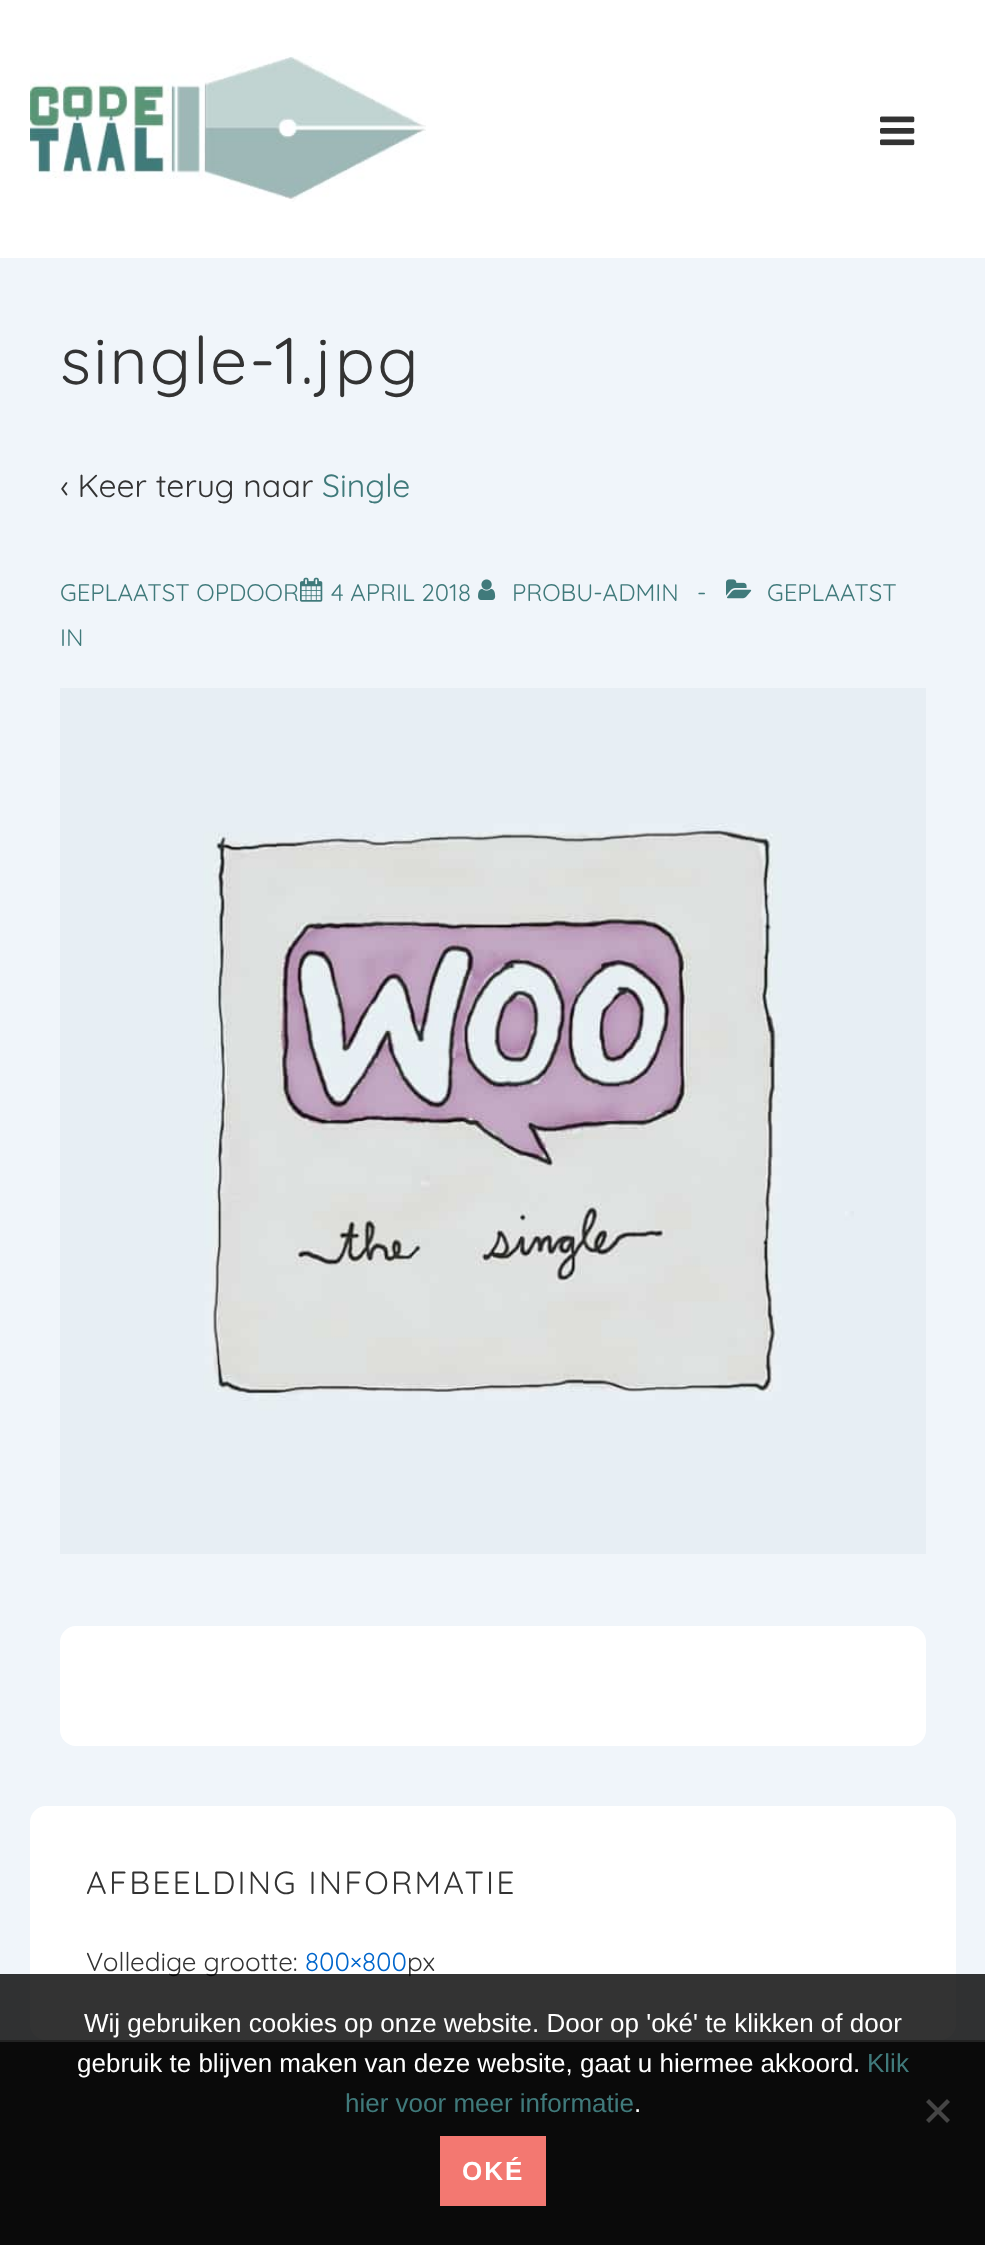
<!DOCTYPE html>
<meta charset="utf-8">
<style>body { margin: 0 } canvas { display: block }</style>
<canvas id="canvas" width="985" height="2245"></canvas>
<script type="module">
  const canvas = document.getElementById("canvas");
  const g = canvas.getContext("2d");
  g.miterLimit = 4;
  g.fontKerning = "normal";
  function drawText(s, x, y, [font, color]) {
    g.font = font;
    g.fillStyle = color;
    g.fillText(s, x, y);
  }
  function fillBox(x, y, w, h, color) {
    g.fillStyle = color;
    g.fillRect(x, y, w, h);
  }
  function fillRounded(x, y, w, h, r, color) {
    g.fillStyle = color;
    g.beginPath();
    g.roundRect(x, y, w, h, r);
    g.fill();
  }
  async function drawPicture(src, x, y, w, h) {
    const img = new Image();
    img.src = src;
    await img.decode();
    g.drawImage(img, x, y, w, h);
  }

  const s1 = ["66px Quicksand", "#333333"];
  const s2 = ["32px Quicksand", "#333333"];
  const s3 = ["32px Quicksand", "#407A7B"];
  const s4 = ["24px Quicksand", "#407A7B"];
  const s5 = ["26px Quicksand", "#333333"];
  const s6 = ["26px Quicksand", "#0066CC"];
  const s7 = ["26px Liberation Sans", "#FFFFFF"];
  const s8 = ["26px Liberation Sans", "#407A7B"];
  const s9 = ["bold 26px Liberation Sans", "#FFFFFF"];

  fillBox(0, 0, 985, 2245, "#F0F5FA");
  fillBox(0, 0, 985, 258, "#FFFFFF");
  await drawPicture("pic1.png", 30, 56, 396, 146);
  await drawPicture("pic2.png", 880, 116, 35, 30);
  g.letterSpacing = "2.2px";
  drawText("single-1.jpg", 60, 384, s1);
  g.letterSpacing = "0px";
  drawText("‹ Keer terug naar", 60, 497, s2);
  drawText("Single", 322, 497, s3);
  drawText("GEPLAATST OPDOOR", 60, 601, s4);
  await drawPicture("pic3.png", 300, 577, 23, 25);
  drawText("4 APRIL 2018", 331, 601, s4);
  await drawPicture("pic4.png", 478, 579, 18, 21);
  drawText("PROBU-ADMIN", 512, 601, s4);
  drawText("-", 697, 601, s4);
  await drawPicture("pic5.png", 726, 579, 26, 20);
  drawText("GEPLAATST", 767, 601, s4);
  drawText("IN", 60, 646, s4);
  await drawPicture("pic6.png", 60, 688, 866, 866);
  fillRounded(60, 1626, 866, 120, 16, "#FFFFFF");
  fillRounded(30, 1806, 926, 234, 16, "#FFFFFF");
  g.letterSpacing = "2.2px";
  drawText("AFBEELDING INFORMATIE", 86, 1894, s2);
  g.letterSpacing = "0px";
  drawText("Volledige grootte:", 86, 1971, s5);
  drawText("800×800", 305, 1971, s6);
  drawText("px", 407, 1971, s5);
  fillBox(0, 2042, 985, 203, "#333333");
  fillBox(0, 2040, 985, 2, "#AAAAAA");
  fillBox(0, 1974, 985, 271, "rgba(0, 0, 0, 0.8)");
  drawText("Wij gebruiken cookies op onze website. Door op 'oké' te klikken of door", 84, 2032, s7);
  drawText("gebruik te blijven maken van deze website, gaat u hiermee akkoord.", 77, 2072, s7);
  drawText("Klik", 867, 2072, s8);
  drawText("hier voor meer informatie", 345, 2112, s8);
  drawText(".", 634, 2112, s7);
  g.fillStyle = "#454545";
  g.beginPath();
  g.moveTo(947, 2099);
  g.lineTo(950, 2102);
  g.lineTo(929, 2123);
  g.lineTo(926, 2120);
  g.closePath();
  g.fill();
  g.beginPath();
  g.moveTo(926, 2102);
  g.lineTo(929, 2099);
  g.lineTo(950, 2120);
  g.lineTo(947, 2123);
  g.closePath();
  g.fill();
  fillBox(440, 2136, 106, 70, "#F37871");
  g.letterSpacing = "2px";
  drawText("OKÉ", 462, 2180, s9);
</script>
